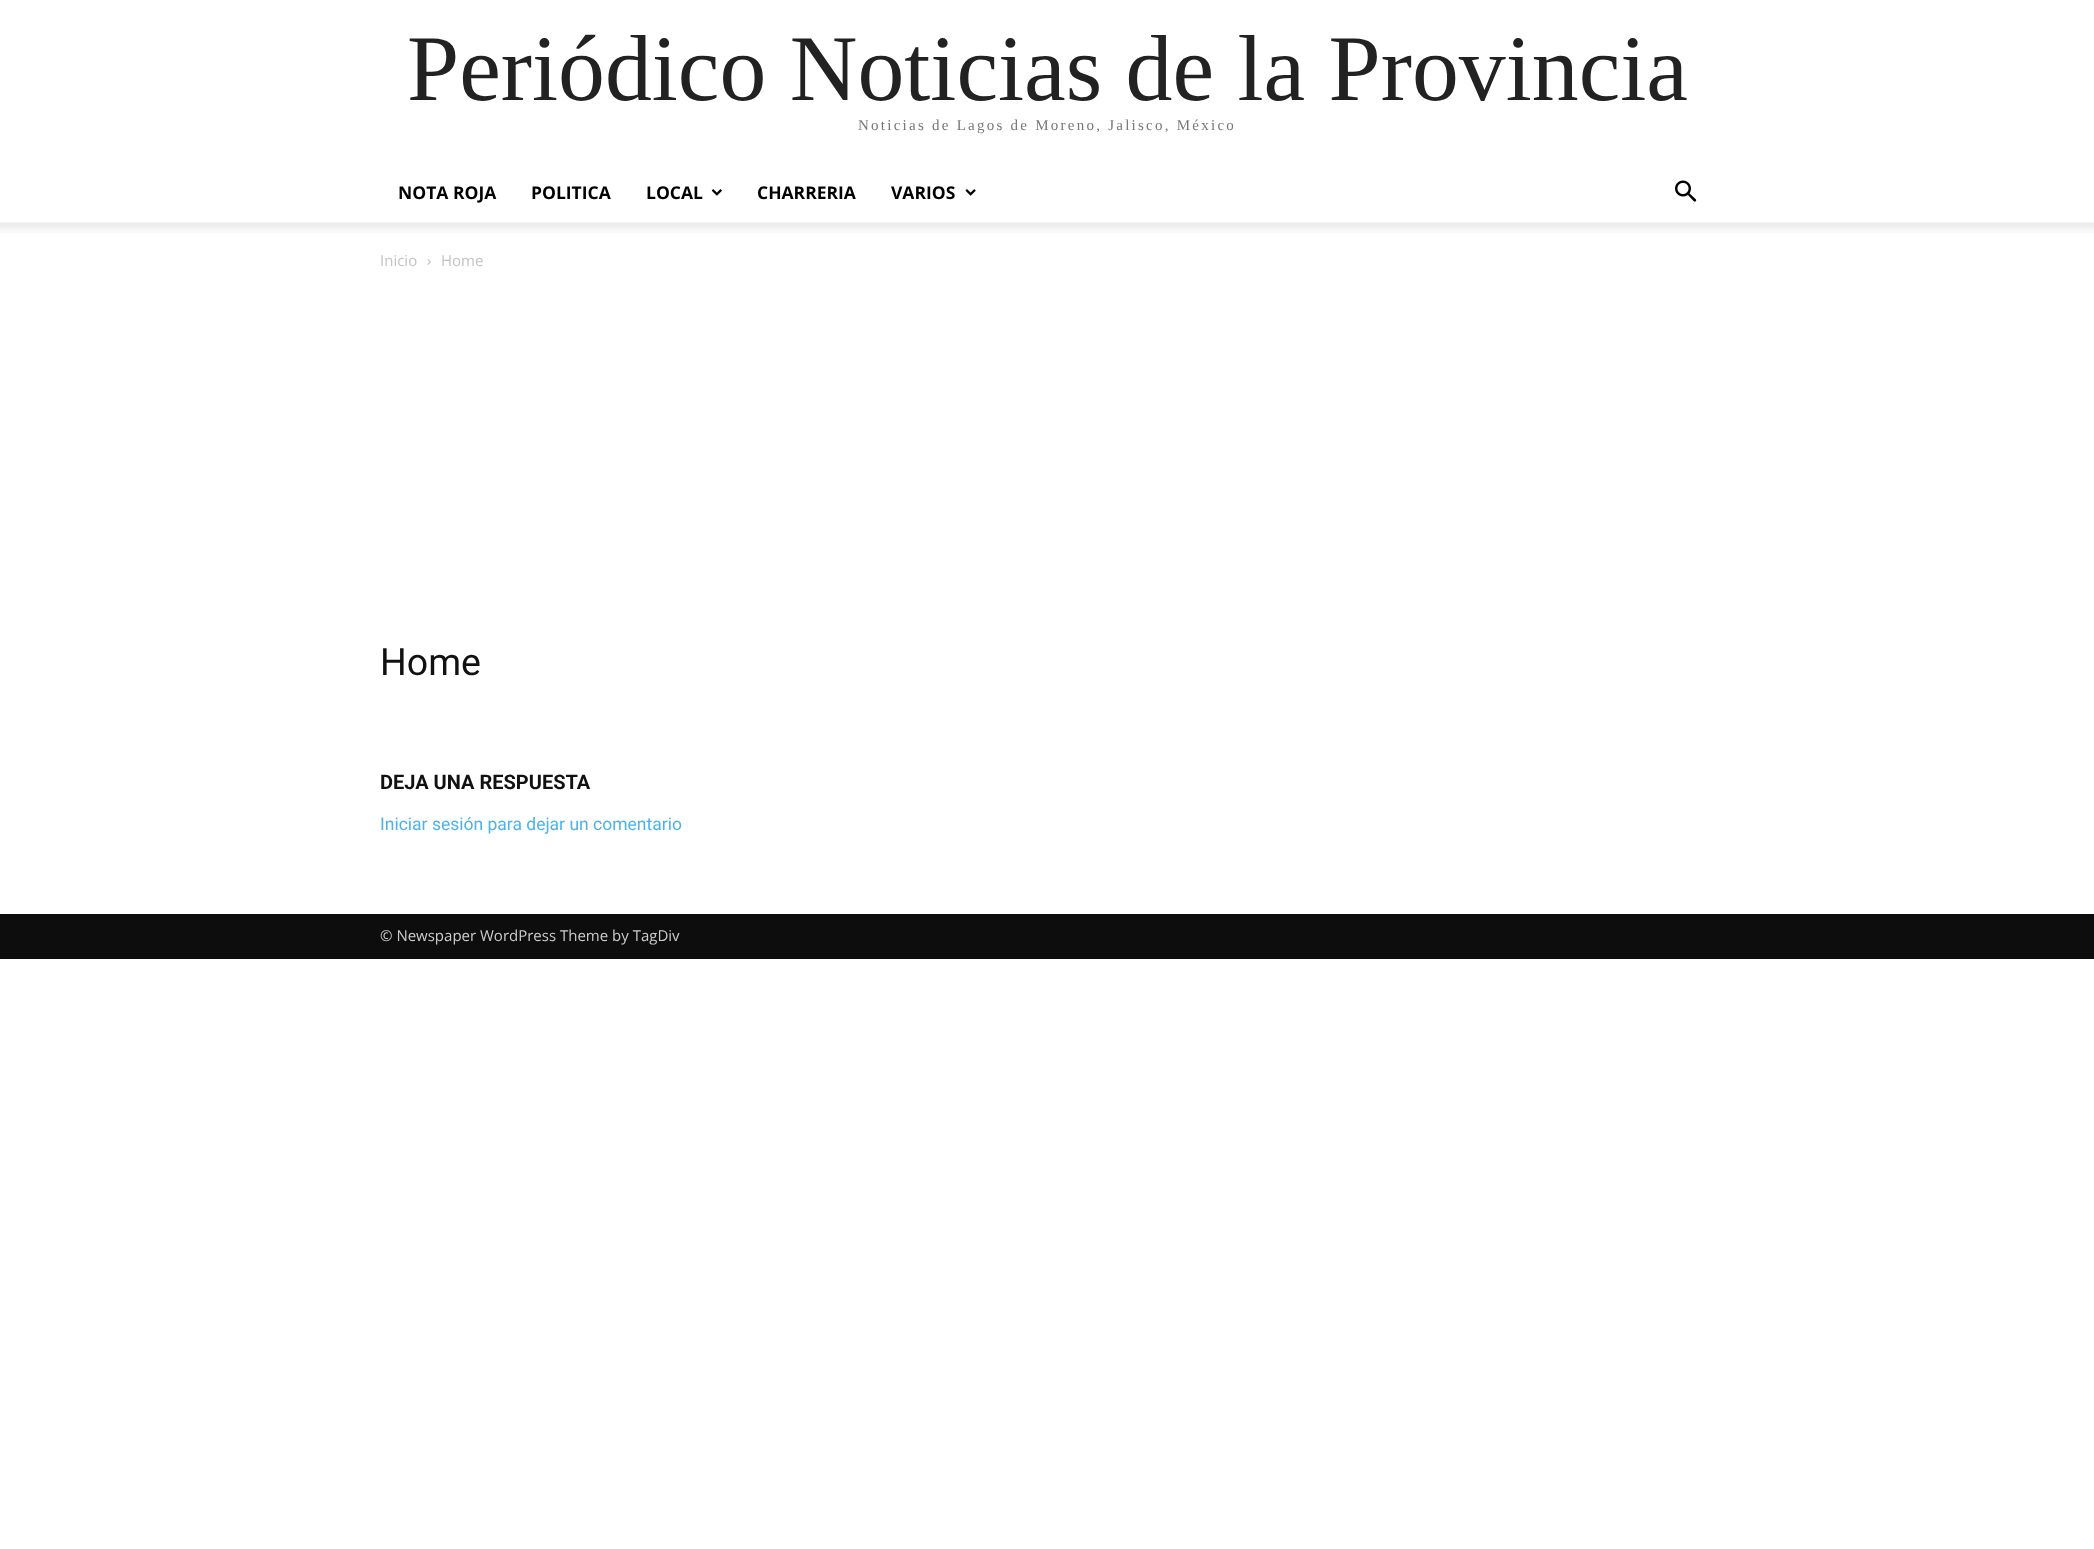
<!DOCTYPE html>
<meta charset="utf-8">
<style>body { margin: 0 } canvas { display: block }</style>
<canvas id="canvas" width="2094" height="1549"></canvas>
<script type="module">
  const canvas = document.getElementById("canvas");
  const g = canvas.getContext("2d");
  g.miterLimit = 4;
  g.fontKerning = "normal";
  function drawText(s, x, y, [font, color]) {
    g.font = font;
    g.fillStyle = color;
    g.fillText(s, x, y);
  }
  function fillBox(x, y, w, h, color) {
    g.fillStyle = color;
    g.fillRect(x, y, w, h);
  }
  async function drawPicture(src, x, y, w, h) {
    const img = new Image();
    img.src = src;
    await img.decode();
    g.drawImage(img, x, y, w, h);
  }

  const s1 = ["93.75px Liberation Serif", "#222222"];
  const s2 = ["15px Liberation Serif", "#777777"];
  const s3 = ["bold 17.5px Open Sans", "#000000"];
  const s4 = ["15px Open Sans", "#C3C3C3"];
  const s5 = ["37.5px Roboto", "#111111"];
  const s6 = ["bold 20px Roboto", "#111111"];
  const s7 = ["17.5px Roboto", "#4DB2EC"];
  const s8 = ["15px Open Sans", "#CCCCCC"];

  fillBox(0, 0, 2094, 1549, "#FFFFFF");
  drawText("Periódico Noticias de la Provincia", 407, 100, s1);
  g.letterSpacing = "2.25px";
  drawText("Noticias de Lagos de Moreno, Jalisco, México", 858, 130, s2);
  g.letterSpacing = "0px";
  drawText("NOTA ROJA", 398, 199, s3);
  drawText("POLITICA", 531, 199, s3);
  drawText("LOCAL", 646, 199, s3);
  await drawPicture("pic1.png", 711, 189, 11, 7);
  drawText("CHARRERIA", 757, 199, s3);
  drawText("VARIOS", 891, 199, s3);
  await drawPicture("pic2.png", 965, 189, 11, 7);
  await drawPicture("pic3.png", 1675, 180, 22, 22);
  await drawPicture("pic4.png", 0, 222, 2094, 11);
  drawText("Inicio", 380, 266, s4);
  await drawPicture("pic5.png", 427, 259, 4, 6);
  drawText("Home", 441, 266, s4);
  drawText("Home", 380, 675, s5);
  drawText("DEJA UNA RESPUESTA", 380, 789, s6);
  drawText("Iniciar sesión para dejar un comentario", 380, 830, s7);
  fillBox(0, 914, 2094, 45, "#0D0D0D");
  drawText("© Newspaper WordPress Theme by TagDiv", 380, 941, s8);
</script>
